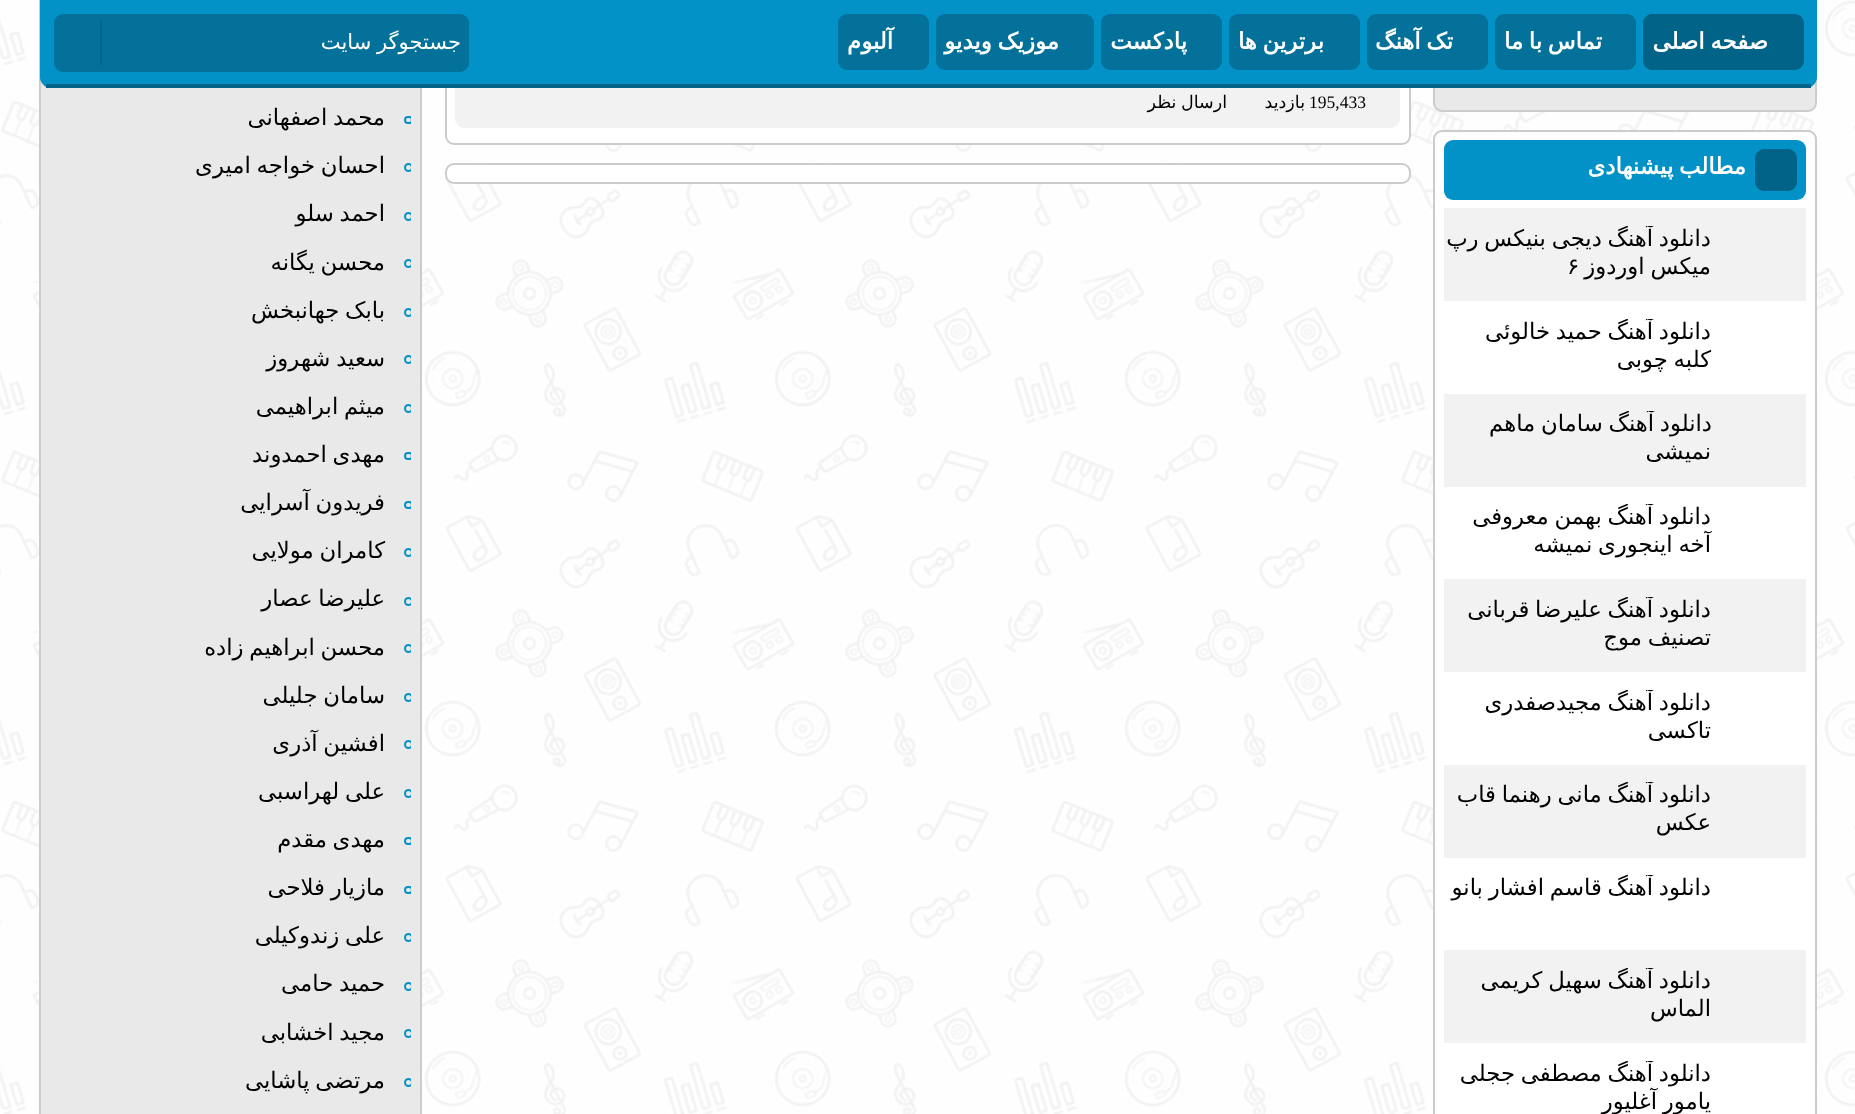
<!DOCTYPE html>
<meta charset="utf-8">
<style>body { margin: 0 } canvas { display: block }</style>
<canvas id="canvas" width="1855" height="1114"></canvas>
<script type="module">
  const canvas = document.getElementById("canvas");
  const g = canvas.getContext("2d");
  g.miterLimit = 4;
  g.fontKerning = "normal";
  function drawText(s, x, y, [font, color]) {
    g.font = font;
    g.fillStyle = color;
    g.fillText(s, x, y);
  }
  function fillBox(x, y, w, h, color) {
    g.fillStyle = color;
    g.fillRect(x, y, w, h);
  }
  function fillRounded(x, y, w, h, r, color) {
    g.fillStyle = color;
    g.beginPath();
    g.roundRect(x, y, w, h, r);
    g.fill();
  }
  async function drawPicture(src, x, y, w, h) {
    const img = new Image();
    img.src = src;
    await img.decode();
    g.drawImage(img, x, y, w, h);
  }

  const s1 = ["bold 22.75px DejaVu Sans", "#FFFFFF"];
  const s2 = ["21px DejaVu Sans", "#FFFFFF"];
  const s3 = ["17.5px Liberation Serif", "#000000"];
  const s4 = ["17.5px DejaVu Sans", "#000000"];
  const s5 = ["22.75px DejaVu Sans", "#000000"];

  fillBox(0, 0, 1855, 1114, "#FFFFFF");
  await drawPicture("pic1.png", 0, 0, 1855, 1114);
  g.beginPath();
  g.roundRect(446, -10, 964, 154, 8);
  g.fill();
  g.strokeStyle = "#CCCCCC";
  g.lineWidth = 2;
  g.stroke();
  fillRounded(455, 77, 945, 51, 9, "#F2F2F2");
  g.fillStyle = "#E9E9E9";
  g.beginPath();
  g.roundRect(1434, -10, 382, 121, 8);
  g.fill();
  g.stroke();
  fillBox(41, 81, 379, 1033, "#E9E9E9");
  g.strokeRect(40, -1, 381, 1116);
  g.fillStyle = "#0292C7";
  g.beginPath();
  g.roundRect(40, 0, 1777, 88, [0, 0, 11, 11]);
  g.fill();
  fillBox(46, 84, 1765, 4, "#006387");
  fillRounded(1643, 14, 161, 56, 9, "#006387");
  g.wordSpacing = "-1.5px";
  g.direction = "rtl";
  drawText("صفحه اصلی", 1768, 49, s1);
  fillRounded(1495, 14, 141, 56, 9, "#037199");
  drawText("تماس با ما", 1602, 49, s1);
  fillRounded(1367, 14, 121, 56, 9, "#037199");
  drawText("تک آهنگ", 1453, 49, s1);
  fillRounded(1229, 14, 131, 56, 9, "#037199");
  drawText("برترین ها", 1324, 49, s1);
  fillRounded(1101, 14, 121, 56, 9, "#037199");
  g.wordSpacing = "0px";
  drawText("پادکست", 1187, 49, s1);
  fillRounded(936, 14, 158, 56, 9, "#037199");
  g.wordSpacing = "-1.5px";
  drawText("موزیک ویدیو", 1059, 49, s1);
  fillRounded(838, 14, 91, 56, 9, "#037199");
  g.wordSpacing = "0px";
  drawText("آلبوم", 893, 49, s1);
  fillRounded(54, 14, 415, 58, 9, "#037199");
  fillBox(100, 21, 2, 44, "#006387");
  g.wordSpacing = "-1px";
  drawText("جستجوگر سایت", 461, 49, s2);
  g.wordSpacing = "0px";
  g.direction = "ltr";
  drawText("195,433", 1309, 108, s3);
  g.direction = "rtl";
  drawText("بازدید", 1305, 108, s4);
  g.wordSpacing = "-1px";
  drawText("ارسال نظر", 1227, 108, s4);
  g.fillStyle = "#FFFFFF";
  g.beginPath();
  g.roundRect(446, 164, 964, 19, 8);
  g.fill();
  g.stroke();
  g.beginPath();
  g.roundRect(1434, 131, 382, 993, 8);
  g.fill();
  g.stroke();
  fillRounded(1444, 140, 362, 60, 9, "#0292C7");
  fillRounded(1755, 149, 42, 42, 9, "#006387");
  g.wordSpacing = "-1.5px";
  drawText("مطالب پیشنهادی", 1746, 174, s1);
  fillBox(1444, 208, 362, 93, "#F2F2F2");
  g.save();
  g.beginPath();
  g.rect(1444, 226, 268, 56);
  g.clip();
  drawText("دانلود آهنگ دیجی بنیکس رپ", 1711, 246, s5);
  g.restore();
  drawText("میکس اوردوز", 1711, 274, s5);
  g.wordSpacing = "0px";
  g.direction = "ltr";
  drawText("۶", 1567, 274, s5);
  g.save();
  g.beginPath();
  g.rect(1444, 319, 268, 56);
  g.clip();
  g.wordSpacing = "-1.5px";
  g.direction = "rtl";
  drawText("دانلود آهنگ حمید خالوئی", 1711, 339, s5);
  g.restore();
  g.wordSpacing = "-1.5px";
  g.direction = "rtl";
  drawText("کلبه چوبی", 1711, 367, s5);
  fillBox(1444, 394, 362, 93, "#F2F2F2");
  g.save();
  g.beginPath();
  g.rect(1444, 411, 268, 56);
  g.clip();
  drawText("دانلود آهنگ سامان ماهم", 1712, 431, s5);
  g.restore();
  g.wordSpacing = "0px";
  drawText("نمیشی", 1711, 459, s5);
  g.save();
  g.beginPath();
  g.rect(1444, 504, 268, 56);
  g.clip();
  g.wordSpacing = "-1.5px";
  drawText("دانلود آهنگ بهمن معروفی", 1711, 524, s5);
  g.restore();
  g.wordSpacing = "-1.5px";
  drawText("آخه اینجوری نمیشه", 1711, 552, s5);
  fillBox(1444, 579, 362, 93, "#F2F2F2");
  g.save();
  g.beginPath();
  g.rect(1444, 597, 268, 56);
  g.clip();
  drawText("دانلود آهنگ علیرضا قربانی", 1711, 617, s5);
  g.restore();
  drawText("تصنیف موج", 1711, 645, s5);
  g.save();
  g.beginPath();
  g.rect(1444, 690, 268, 56);
  g.clip();
  drawText("دانلود آهنگ مجیدصفدری", 1711, 710, s5);
  g.restore();
  g.wordSpacing = "0px";
  drawText("تاکسی", 1711, 738, s5);
  fillBox(1444, 765, 362, 93, "#F2F2F2");
  g.save();
  g.beginPath();
  g.rect(1444, 782, 268, 56);
  g.clip();
  g.wordSpacing = "-1.5px";
  drawText("دانلود آهنگ مانی رهنما قاب", 1711, 802, s5);
  g.restore();
  drawText("عکس", 1711, 830, s5);
  g.save();
  g.beginPath();
  g.rect(1444, 875, 268, 28);
  g.clip();
  g.wordSpacing = "-1.5px";
  drawText("دانلود آهنگ قاسم افشار بانو", 1711, 895, s5);
  g.restore();
  fillBox(1444, 950, 362, 93, "#F2F2F2");
  g.save();
  g.beginPath();
  g.rect(1444, 968, 268, 56);
  g.clip();
  g.wordSpacing = "-1.5px";
  drawText("دانلود آهنگ سهیل کریمی", 1711, 988, s5);
  g.restore();
  drawText("الماس", 1711, 1016, s5);
  g.save();
  g.beginPath();
  g.rect(1444, 1061, 268, 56);
  g.clip();
  g.wordSpacing = "-1.5px";
  drawText("دانلود آهنگ مصطفی ججلی", 1711, 1081, s5);
  g.restore();
  g.wordSpacing = "-1.5px";
  drawText("یامور آغلیور", 1711, 1109, s5);
  g.save();
  g.beginPath();
  g.rect(49, 0, 362, 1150);
  g.clip();
  g.beginPath();
  g.roundRect(405, 117, 7, 6, 3);
  g.strokeStyle = "#0292C7";
  g.stroke();
  g.restore();
  drawText("محمد اصفهانی", 385, 125, s5);
  g.save();
  g.beginPath();
  g.rect(49, 0, 362, 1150);
  g.clip();
  g.beginPath();
  g.arc(408.5, 167.5, 3.5, 0, Math.PI * 2);
  g.strokeStyle = "#0292C7";
  g.stroke();
  g.restore();
  drawText("احسان خواجه امیری", 385, 173, s5);
  g.save();
  g.beginPath();
  g.rect(49, 0, 362, 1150);
  g.clip();
  g.beginPath();
  g.arc(408.5, 216.5, 3.5, 0, Math.PI * 2);
  g.strokeStyle = "#0292C7";
  g.stroke();
  g.restore();
  drawText("احمد سلو", 385, 221, s5);
  g.save();
  g.beginPath();
  g.rect(49, 0, 362, 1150);
  g.clip();
  g.beginPath();
  g.arc(408.5, 263.5, 3.5, 0, Math.PI * 2);
  g.strokeStyle = "#0292C7";
  g.stroke();
  g.restore();
  drawText("محسن یگانه", 385, 270, s5);
  g.save();
  g.beginPath();
  g.rect(49, 0, 362, 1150);
  g.clip();
  g.beginPath();
  g.arc(408.5, 312.5, 3.5, 0, Math.PI * 2);
  g.strokeStyle = "#0292C7";
  g.stroke();
  g.restore();
  drawText("بابک جهانبخش", 385, 318, s5);
  g.save();
  g.beginPath();
  g.rect(49, 0, 362, 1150);
  g.clip();
  g.beginPath();
  g.arc(408.5, 359.5, 3.5, 0, Math.PI * 2);
  g.strokeStyle = "#0292C7";
  g.stroke();
  g.restore();
  drawText("سعید شهروز", 385, 366, s5);
  g.save();
  g.beginPath();
  g.rect(49, 0, 362, 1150);
  g.clip();
  g.beginPath();
  g.arc(408.5, 408.5, 3.5, 0, Math.PI * 2);
  g.strokeStyle = "#0292C7";
  g.stroke();
  g.restore();
  drawText("میثم ابراهیمی", 385, 414, s5);
  g.save();
  g.beginPath();
  g.rect(49, 0, 362, 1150);
  g.clip();
  g.beginPath();
  g.roundRect(405, 453, 7, 6, 3);
  g.strokeStyle = "#0292C7";
  g.stroke();
  g.restore();
  drawText("مهدی احمدوند", 385, 462, s5);
  g.save();
  g.beginPath();
  g.rect(49, 0, 362, 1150);
  g.clip();
  g.beginPath();
  g.roundRect(405, 502, 7, 6, 3);
  g.strokeStyle = "#0292C7";
  g.stroke();
  g.restore();
  drawText("فریدون آسرایی", 385, 510, s5);
  g.save();
  g.beginPath();
  g.rect(49, 0, 362, 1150);
  g.clip();
  g.beginPath();
  g.arc(408.5, 552.5, 3.5, 0, Math.PI * 2);
  g.strokeStyle = "#0292C7";
  g.stroke();
  g.restore();
  drawText("کامران مولایی", 385, 558, s5);
  g.save();
  g.beginPath();
  g.rect(49, 0, 362, 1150);
  g.clip();
  g.beginPath();
  g.arc(408.5, 601.5, 3.5, 0, Math.PI * 2);
  g.strokeStyle = "#0292C7";
  g.stroke();
  g.restore();
  drawText("علیرضا عصار", 385, 606, s5);
  g.save();
  g.beginPath();
  g.rect(49, 0, 362, 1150);
  g.clip();
  g.beginPath();
  g.arc(408.5, 648.5, 3.5, 0, Math.PI * 2);
  g.strokeStyle = "#0292C7";
  g.stroke();
  g.restore();
  drawText("محسن ابراهیم زاده", 385, 655, s5);
  g.save();
  g.beginPath();
  g.rect(49, 0, 362, 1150);
  g.clip();
  g.beginPath();
  g.arc(408.5, 697.5, 3.5, 0, Math.PI * 2);
  g.strokeStyle = "#0292C7";
  g.stroke();
  g.restore();
  drawText("سامان جلیلی", 385, 703, s5);
  g.save();
  g.beginPath();
  g.rect(49, 0, 362, 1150);
  g.clip();
  g.beginPath();
  g.arc(408.5, 744.5, 3.5, 0, Math.PI * 2);
  g.strokeStyle = "#0292C7";
  g.stroke();
  g.restore();
  drawText("افشین آذری", 385, 751, s5);
  g.save();
  g.beginPath();
  g.rect(49, 0, 362, 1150);
  g.clip();
  g.beginPath();
  g.arc(408.5, 793.5, 3.5, 0, Math.PI * 2);
  g.strokeStyle = "#0292C7";
  g.stroke();
  g.restore();
  drawText("علی لهراسبی", 385, 799, s5);
  g.save();
  g.beginPath();
  g.rect(49, 0, 362, 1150);
  g.clip();
  g.beginPath();
  g.roundRect(405, 838, 7, 6, 3);
  g.strokeStyle = "#0292C7";
  g.stroke();
  g.restore();
  drawText("مهدی مقدم", 385, 847, s5);
  g.save();
  g.beginPath();
  g.rect(49, 0, 362, 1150);
  g.clip();
  g.beginPath();
  g.roundRect(405, 887, 7, 6, 3);
  g.strokeStyle = "#0292C7";
  g.stroke();
  g.restore();
  drawText("مازیار فلاحی", 385, 895, s5);
  g.save();
  g.beginPath();
  g.rect(49, 0, 362, 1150);
  g.clip();
  g.beginPath();
  g.arc(408.5, 937.5, 3.5, 0, Math.PI * 2);
  g.strokeStyle = "#0292C7";
  g.stroke();
  g.restore();
  drawText("علی زندوکیلی", 385, 943, s5);
  g.save();
  g.beginPath();
  g.rect(49, 0, 362, 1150);
  g.clip();
  g.beginPath();
  g.arc(408.5, 986.5, 3.5, 0, Math.PI * 2);
  g.strokeStyle = "#0292C7";
  g.stroke();
  g.restore();
  drawText("حمید حامی", 385, 991, s5);
  g.save();
  g.beginPath();
  g.rect(49, 0, 362, 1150);
  g.clip();
  g.beginPath();
  g.arc(408.5, 1033.5, 3.5, 0, Math.PI * 2);
  g.strokeStyle = "#0292C7";
  g.stroke();
  g.restore();
  drawText("مجید اخشابی", 385, 1040, s5);
  g.save();
  g.beginPath();
  g.rect(49, 0, 362, 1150);
  g.clip();
  g.beginPath();
  g.arc(408.5, 1082.5, 3.5, 0, Math.PI * 2);
  g.strokeStyle = "#0292C7";
  g.stroke();
  g.restore();
  drawText("مرتضی پاشایی", 385, 1088, s5);
</script>
